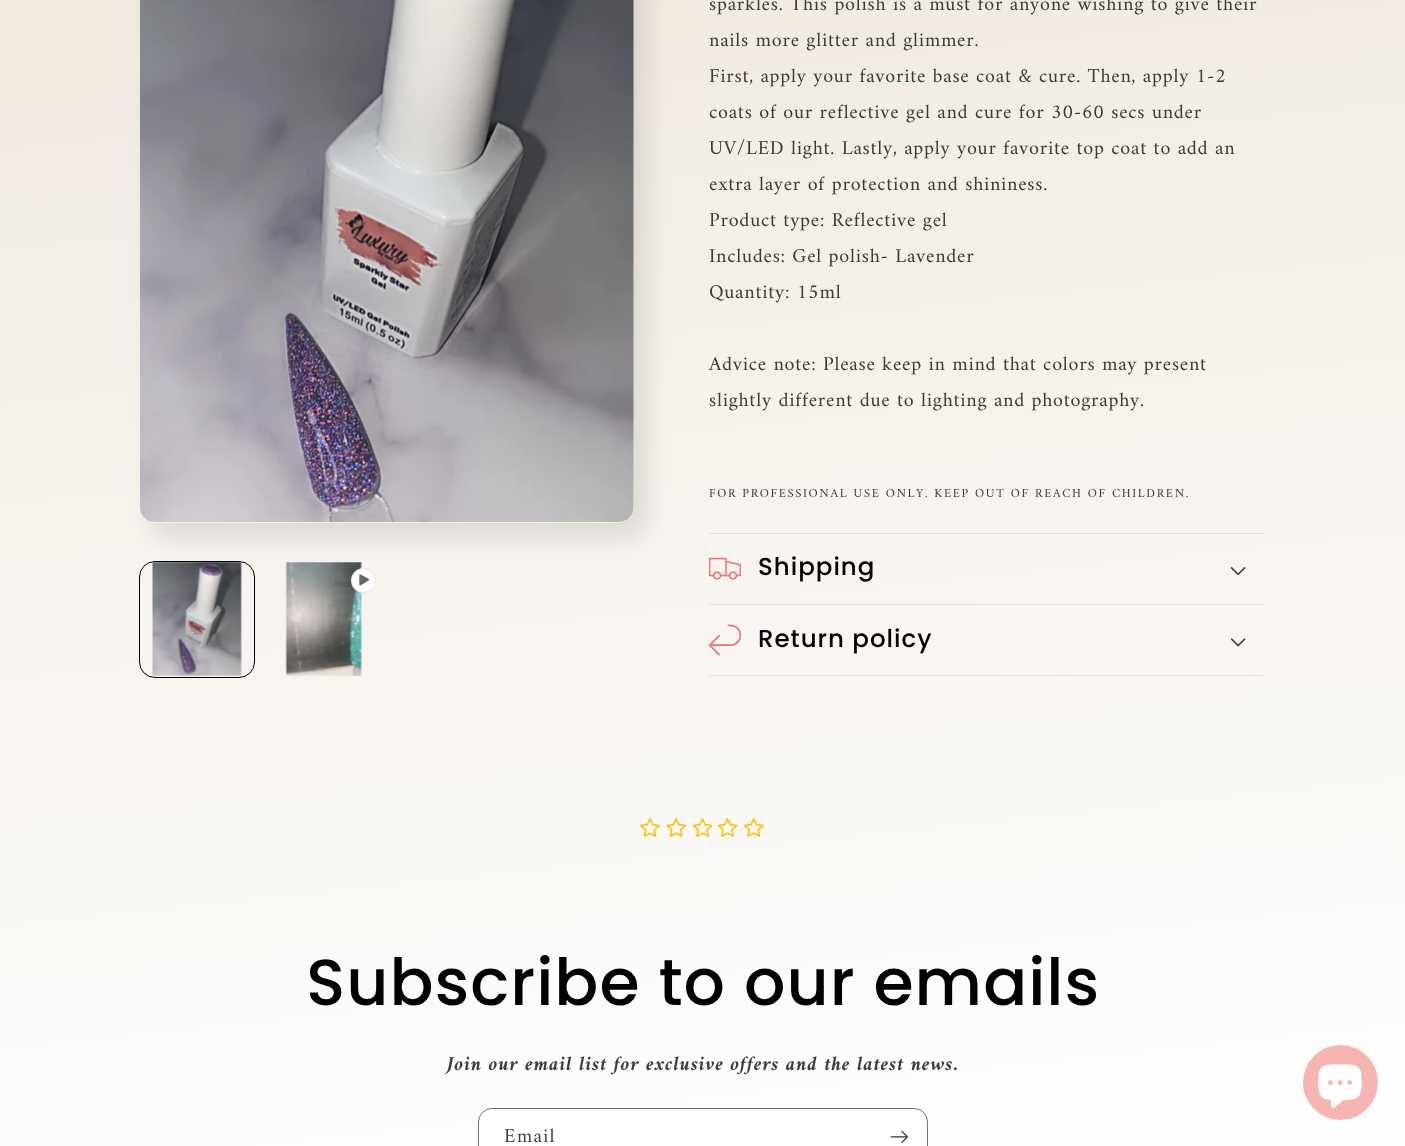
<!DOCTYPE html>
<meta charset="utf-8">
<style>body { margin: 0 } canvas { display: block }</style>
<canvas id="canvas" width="1405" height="1146"></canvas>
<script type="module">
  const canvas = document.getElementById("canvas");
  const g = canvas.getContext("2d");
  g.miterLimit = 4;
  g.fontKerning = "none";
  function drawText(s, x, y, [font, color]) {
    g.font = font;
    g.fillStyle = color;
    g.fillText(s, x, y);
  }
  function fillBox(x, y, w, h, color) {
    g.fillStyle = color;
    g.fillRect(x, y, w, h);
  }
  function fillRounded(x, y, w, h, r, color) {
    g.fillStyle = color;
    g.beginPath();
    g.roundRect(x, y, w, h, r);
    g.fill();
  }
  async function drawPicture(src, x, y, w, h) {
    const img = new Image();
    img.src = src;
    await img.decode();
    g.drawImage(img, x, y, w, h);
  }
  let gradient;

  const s1 = ["20px Amiri", "#3C3B39"];
  const s2 = ["12.5px Amiri", "#3C3B39"];
  const s3 = ["500 24.5px Poppins", "#000000"];
  const s4 = ["500 65px Poppins", "#000000"];
  const s5 = ["italic bold 20px Amiri", "#3F3F3F"];
  const s6 = ["20px Amiri", "#3F3F3F"];

  fillBox(0, 0, 1405, 1146, "#FFFFFF");
  gradient = g.createLinearGradient(770, 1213, 635, -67);
  gradient.addColorStop(0, "#FFFFFF");
  gradient.addColorStop(0.95, "#F1EBE2");
  g.fillStyle = gradient;
  g.fillRect(0, 0, 1405, 1146);
  g.fillStyle = "rgba(0, 0, 0, 0.1)";
  g.filter = "blur(12.5px)";
  g.beginPath();
  g.roundRect(153, -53, 493, 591, 15);
  g.fill();
  g.filter = "none";
  gradient = g.createLinearGradient(770, 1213, 635, -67);
  gradient.addColorStop(0, "#FFFFFF");
  gradient.addColorStop(0.95, "#F1EBE2");
  g.fillStyle = gradient;
  g.beginPath();
  g.roundRect(140, 0, 494, 523, [0, 0, 15, 15]);
  g.fill();
  await drawPicture("pic1.png", 140, 0, 494, 522);
  g.beginPath();
  g.roundRect(139.5, 561.5, 115, 116, 15.5);
  g.strokeStyle = "#000000";
  g.stroke();
  await drawPicture("pic2.png", 152, 562, 90, 115);
  await drawPicture("pic3.png", 285, 562, 77, 115);
  g.fillStyle = "#FFFFFF";
  g.beginPath();
  g.arc(363.5, 580.5, 12.5, 0, Math.PI * 2);
  g.fill();
  g.beginPath();
  g.arc(363.5, 580.5, 12, 0, Math.PI * 2);
  g.strokeStyle = "rgba(0, 0, 0, 0.1)";
  g.stroke();
  await drawPicture("pic4.png", 359, 574, 11, 12);
  g.letterSpacing = "0.75px";
  drawText("sparkles. This polish is a must for anyone wishing to give their", 709, 10, s1);
  drawText("nails more glitter and glimmer.", 709, 46, s1);
  drawText("First, apply your favorite base coat & cure. Then, apply 1-2", 709, 82, s1);
  drawText("coats of our reflective gel and cure for 30-60 secs under", 709, 118, s1);
  drawText("UV/LED light. Lastly, apply your favorite top coat to add an", 709, 154, s1);
  drawText("extra layer of protection and shininess.", 709, 190, s1);
  drawText("Product type: Reflective gel", 709, 226, s1);
  drawText("Includes: Gel polish- Lavender", 709, 262, s1);
  drawText("Quantity: 15ml", 709, 298, s1);
  drawText("Advice note: Please keep in mind that colors may present", 709, 370, s1);
  drawText("slightly different due to lighting and photography.", 709, 406, s1);
  g.letterSpacing = "1.62px";
  drawText("FOR PROFESSIONAL USE ONLY. KEEP OUT OF REACH OF CHILDREN.", 709, 497, s2);
  fillBox(709, 533, 556, 1, "#E4E1DC");
  fillBox(709, 604, 556, 1, "#E4E2DE");
  await drawPicture("pic5.png", 709, 557, 32, 23);
  g.letterSpacing = "1px";
  drawText("Shipping", 758, 575, s3);
  await drawPicture("pic6.png", 1230, 567, 16, 9);
  fillBox(709, 675, 556, 1, "#E5E3DF");
  await drawPicture("pic7.png", 709, 624, 32, 32);
  drawText("Return policy", 758, 647, s3);
  await drawPicture("pic8.png", 1230, 638, 16, 9);
  await drawPicture("pic9.png", 640, 818, 20, 19);
  await drawPicture("pic10.png", 666, 818, 21, 19);
  await drawPicture("pic11.png", 692, 818, 21, 19);
  await drawPicture("pic12.png", 717, 818, 21, 19);
  await drawPicture("pic13.png", 743, 818, 21, 19);
  drawText("Subscribe to our emails", 306, 1005, s4);
  g.letterSpacing = "0.75px";
  drawText("Join our email list for exclusive offers and the latest news.", 447, 1070, s5);
  fillRounded(479, 1109, 447, 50, 13, "#FFFFFF");
  g.beginPath();
  g.roundRect(478.5, 1108.5, 449, 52, 13.5);
  g.strokeStyle = "#727272";
  g.stroke();
  g.letterSpacing = "1.25px";
  drawText("Email", 504, 1142, s6);
  await drawPicture("pic14.png", 890, 1130, 18, 13);
  g.fillStyle = "#F7B5B1";
  g.beginPath();
  g.arc(1340.5, 1082.5, 37.5, 0, Math.PI * 2);
  g.fill();
  await drawPicture("pic15.png", 1318, 1064, 44, 44);
</script>
